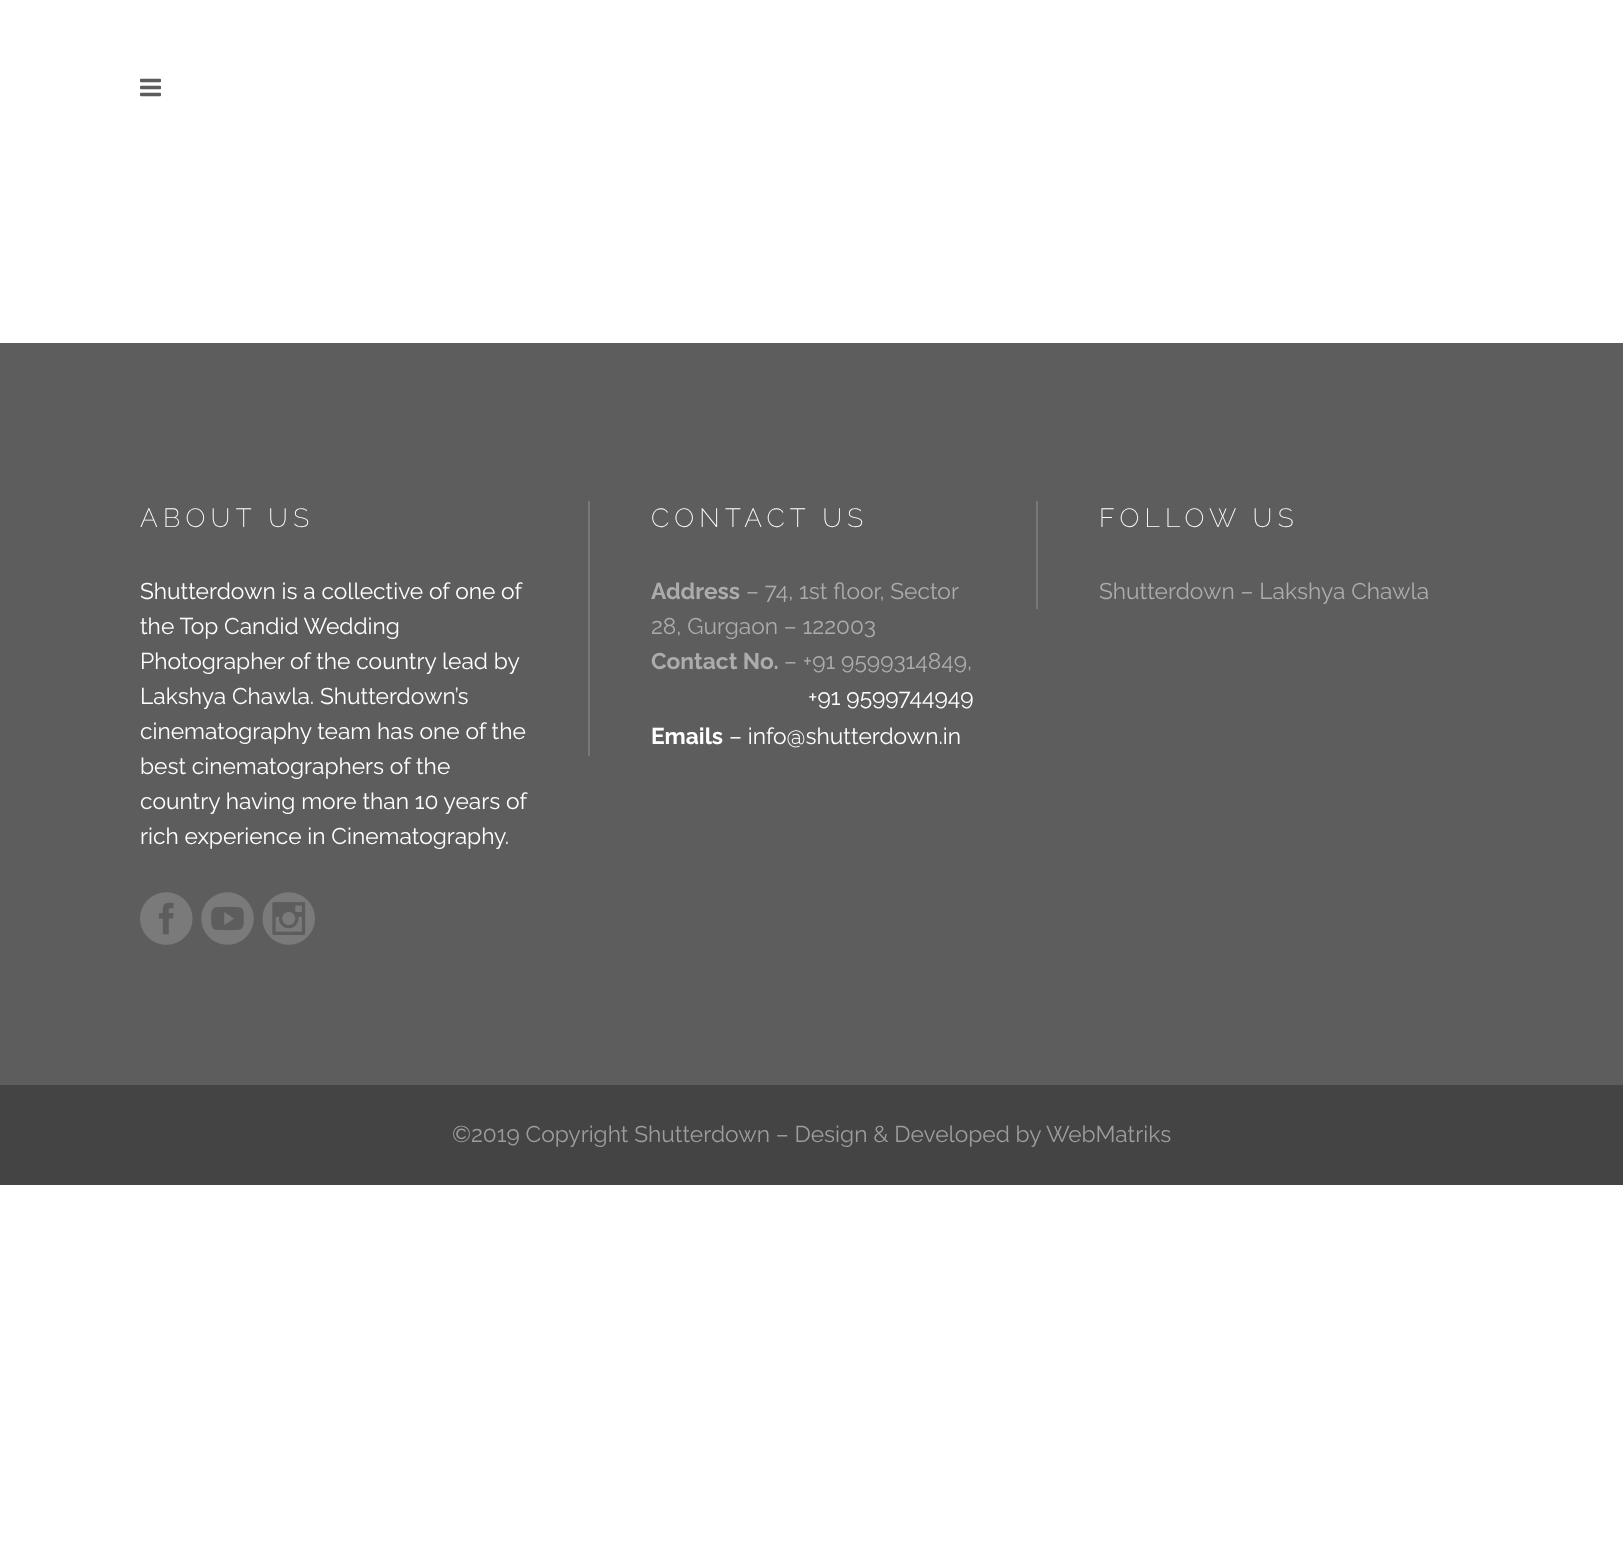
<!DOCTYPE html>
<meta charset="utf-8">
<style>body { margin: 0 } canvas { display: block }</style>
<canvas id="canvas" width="1623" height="1556"></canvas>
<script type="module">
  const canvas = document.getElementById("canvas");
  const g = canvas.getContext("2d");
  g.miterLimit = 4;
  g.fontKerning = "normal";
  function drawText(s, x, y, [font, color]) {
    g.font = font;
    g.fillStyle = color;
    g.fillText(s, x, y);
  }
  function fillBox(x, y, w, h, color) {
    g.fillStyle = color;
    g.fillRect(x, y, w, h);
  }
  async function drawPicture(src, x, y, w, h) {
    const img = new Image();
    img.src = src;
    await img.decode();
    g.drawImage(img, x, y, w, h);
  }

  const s1 = ["200 26.25px Raleway", "#FFFFFF"];
  const s2 = ["22.75px Raleway", "#FFFFFF"];
  const s3 = ["bold 22.75px Raleway", "#ACACAC"];
  const s4 = ["22.75px Raleway", "#ACACAC"];
  const s5 = ["bold 22.75px Raleway", "#FFFFFF"];
  const s6 = ["22.75px Raleway", "#9D9D9D"];

  fillBox(0, 0, 1623, 1556, "#FFFFFF");
  await drawPicture("pic1.png", 140, 78, 21, 19);
  fillBox(0, 343, 1623, 742, "#5D5D5D");
  g.letterSpacing = "5.25px";
  drawText("ABOUT US", 140, 527, s1);
  g.letterSpacing = "0px";
  drawText("Shutterdown is a collective of one of", 140, 599, s2);
  drawText("the Top Candid Wedding", 140, 634, s2);
  drawText("Photographer of the country lead by", 140, 669, s2);
  drawText("Lakshya Chawla. Shutterdown’s", 140, 704, s2);
  drawText("cinematography team has one of the", 140, 739, s2);
  drawText("best cinematographers of the", 140, 774, s2);
  drawText("country having more than 10 years of", 140, 809, s2);
  drawText("rich experience in Cinematography.", 140, 844, s2);
  await drawPicture("pic2.png", 140, 892, 53, 53);
  await drawPicture("pic3.png", 201, 892, 53, 53);
  await drawPicture("pic4.png", 262, 892, 53, 53);
  fillBox(588, 501, 2, 255, "#777777");
  g.letterSpacing = "5.25px";
  drawText("CONTACT US", 651, 527, s1);
  g.letterSpacing = "0px";
  drawText("Address", 651, 599, s3);
  drawText("– 74, 1st floor, Sector", 746, 599, s4);
  drawText("28, Gurgaon – 122003", 651, 634, s4);
  drawText("Contact No.", 651, 669, s3);
  drawText("– +91 9599314849,", 784, 669, s4);
  drawText("+91 9599744949", 808, 705, s2);
  drawText("Emails", 651, 744, s5);
  drawText("– info@shutterdown.in", 729, 744, s2);
  fillBox(1036, 501, 2, 108, "#777777");
  g.letterSpacing = "5.25px";
  drawText("FOLLOW US", 1099, 527, s1);
  g.letterSpacing = "0px";
  drawText("Shutterdown – Lakshya Chawla", 1099, 599, s4);
  fillBox(0, 1085, 1623, 100, "#444444");
  drawText("©2019 Copyright Shutterdown – Design & Developed by WebMatriks", 452, 1142, s6);
</script>
